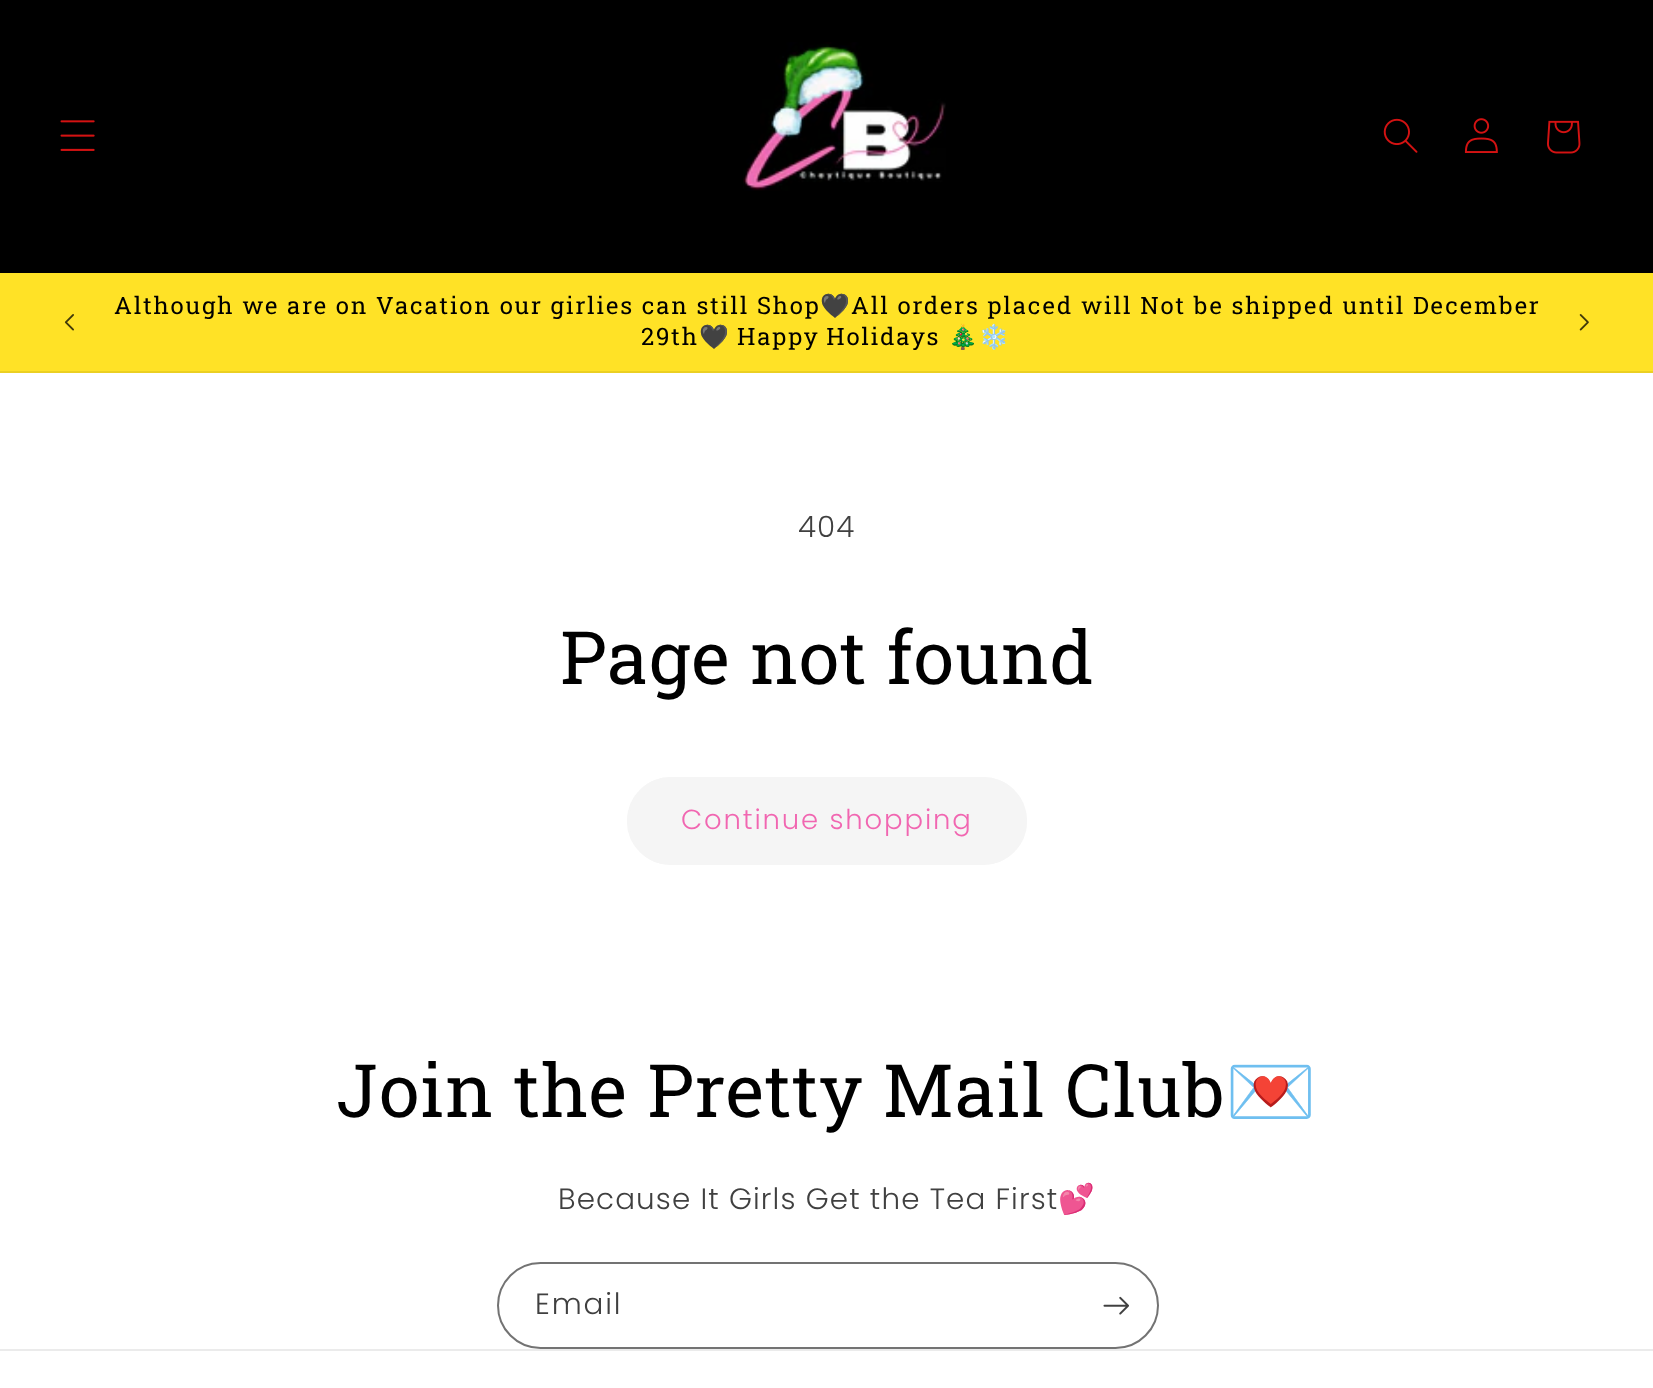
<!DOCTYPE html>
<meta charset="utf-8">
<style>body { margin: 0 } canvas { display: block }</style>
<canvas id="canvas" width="1653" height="1388"></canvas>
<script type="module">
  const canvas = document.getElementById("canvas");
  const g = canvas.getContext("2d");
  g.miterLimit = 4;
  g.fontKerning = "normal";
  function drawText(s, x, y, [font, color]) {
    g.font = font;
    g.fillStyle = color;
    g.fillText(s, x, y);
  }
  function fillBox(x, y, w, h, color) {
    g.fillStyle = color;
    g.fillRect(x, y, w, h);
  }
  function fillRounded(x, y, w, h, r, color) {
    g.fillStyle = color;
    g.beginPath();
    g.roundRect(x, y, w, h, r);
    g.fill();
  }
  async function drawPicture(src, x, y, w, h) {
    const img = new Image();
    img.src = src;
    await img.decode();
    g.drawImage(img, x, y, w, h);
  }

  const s1 = ["23.9px Roboto Slab", "#000000"];
  const s2 = ["23.9px Noto Color Emoji", "#000000"];
  const s3 = ["300 29.4px Poppins", "#404040"];
  const s4 = ["73.5px Roboto Slab", "#000000"];
  const s5 = ["300 27.5px Poppins", "#F166B1"];
  const s6 = ["73.5px Noto Color Emoji", "#000000"];
  const s7 = ["29.4px Noto Color Emoji", "#404040"];

  fillBox(0, 0, 1653, 1388, "#FFFFFF");
  fillBox(0, 0, 1653, 273, "#000000");
  await drawPicture("pic1.png", 60, 120, 35, 31);
  await drawPicture("pic2.png", 743, 42, 203, 149);
  await drawPicture("pic3.png", 1383, 118, 35, 35);
  await drawPicture("pic4.png", 1464, 118, 34, 35);
  await drawPicture("pic5.png", 1547, 120, 34, 34);
  fillBox(0, 273, 1653, 98, "#FFE226");
  fillBox(0, 371, 1653, 2, "#EBD023");
  await drawPicture("pic6.png", 64, 314, 10, 17);
  g.letterSpacing = "1.85px";
  drawText("Although we are on Vacation our girlies can still Shop", 114, 314, s1);
  drawText("🖤", 820, 314, s2);
  drawText("All orders placed will Not be shipped until December", 851, 314, s1);
  drawText("29th", 641, 345, s1);
  drawText("🖤", 699, 345, s2);
  g.wordSpacing = "-1px";
  drawText("Happy Holidays", 737, 345, s1);
  g.wordSpacing = "0px";
  drawText("🎄❄️", 948, 345, s2);
  await drawPicture("pic7.png", 1579, 314, 10, 17);
  g.letterSpacing = "1.1px";
  drawText("404", 798, 537, s3);
  drawText("Page not found", 560, 684, s4);
  fillRounded(627, 777, 400, 88, 44, "#F5F5F5");
  g.beginPath();
  g.roundRect(628, 778, 398, 86, 43);
  g.strokeStyle = "#F5F5F5";
  g.lineWidth = 2;
  g.stroke();
  g.letterSpacing = "1.85px";
  drawText("Continue shopping", 681, 829, s5);
  g.letterSpacing = "1.1px";
  drawText("Join the Pretty Mail Club", 336, 1117, s4);
  drawText("💌", 1225, 1117, s6);
  drawText("Because It Girls Get the Tea First", 558, 1209, s3);
  drawText("💕", 1058, 1209, s7);
  g.beginPath();
  g.roundRect(498, 1263, 660, 85, 42.5);
  g.strokeStyle = "#737373";
  g.stroke();
  g.letterSpacing = "1.85px";
  drawText("Email", 535, 1314, s3);
  await drawPicture("pic8.png", 1103, 1296, 26, 19);
  fillBox(0, 1349, 1653, 2, "#EBEBEB");
</script>
